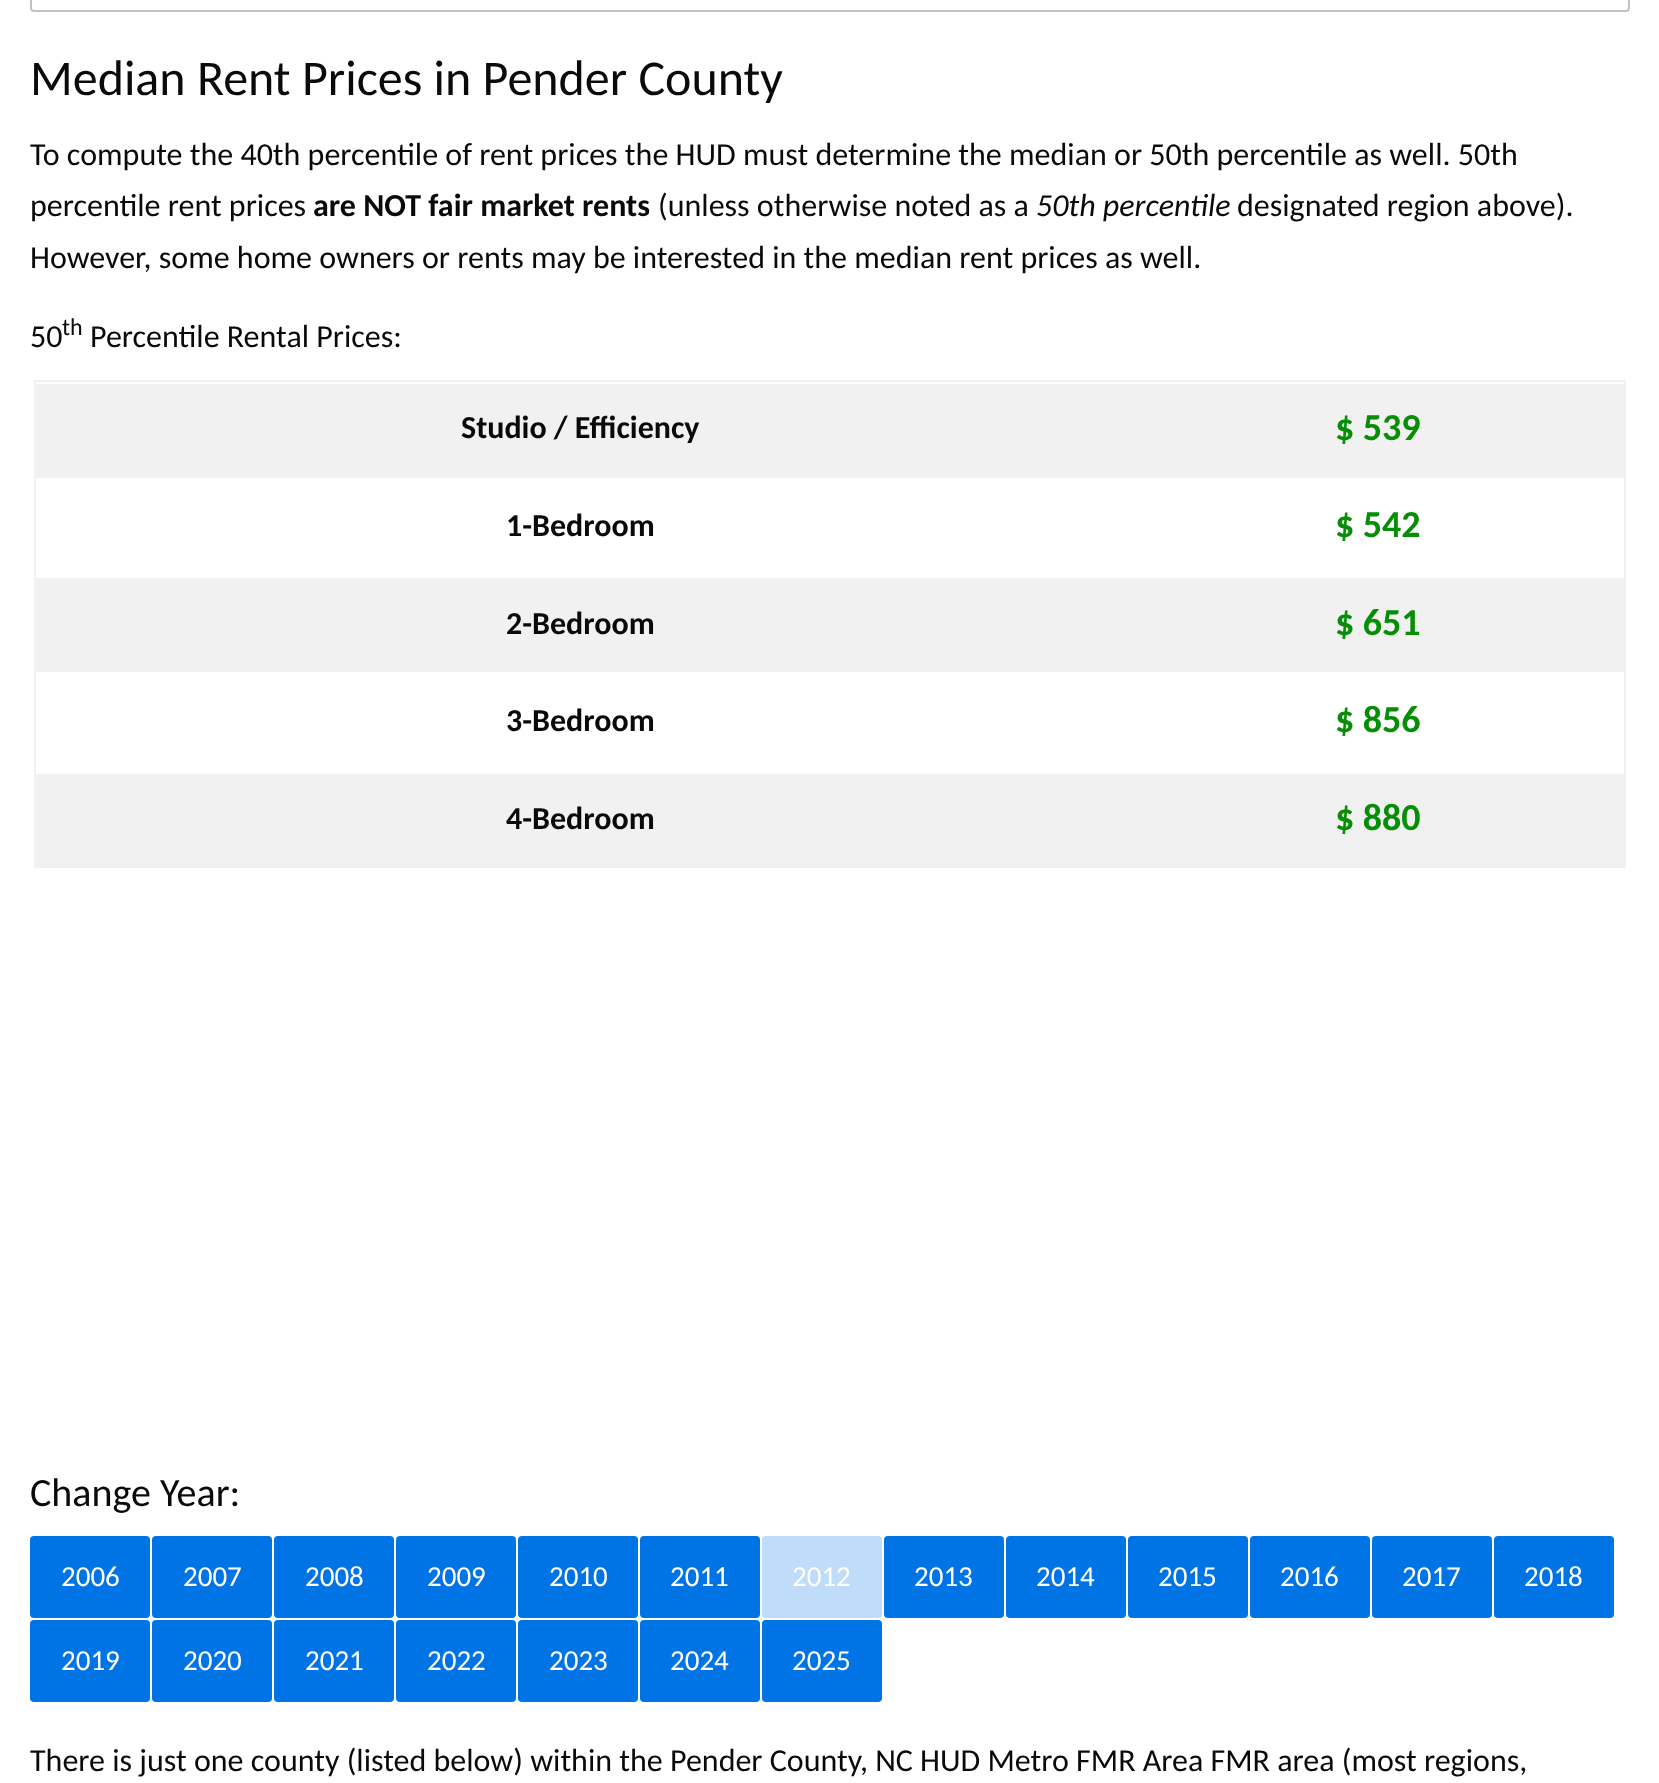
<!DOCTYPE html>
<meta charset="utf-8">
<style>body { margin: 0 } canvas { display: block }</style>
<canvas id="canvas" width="1659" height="1783"></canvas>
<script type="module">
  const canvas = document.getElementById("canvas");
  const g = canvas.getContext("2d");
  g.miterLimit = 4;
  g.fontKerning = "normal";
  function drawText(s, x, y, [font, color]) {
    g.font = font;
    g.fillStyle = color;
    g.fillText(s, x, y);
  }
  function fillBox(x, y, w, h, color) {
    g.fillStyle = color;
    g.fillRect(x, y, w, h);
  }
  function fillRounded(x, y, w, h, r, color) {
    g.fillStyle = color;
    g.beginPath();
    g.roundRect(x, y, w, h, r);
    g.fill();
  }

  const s1 = ["50px Carlito", "#0A0A0A"];
  const s2 = ["32px Carlito", "#0A0A0A"];
  const s3 = ["bold 32px Carlito", "#0A0A0A"];
  const s4 = ["italic 32px Carlito", "#0A0A0A"];
  const s5 = ["24px Carlito", "#0A0A0A"];
  const s6 = ["bold 38px Carlito", "#078E07"];
  const s7 = ["40px Carlito", "#0A0A0A"];
  const s8 = ["29px Carlito", "#FEFEFE"];

  fillBox(0, 0, 1659, 1783, "#FFFFFF");
  g.beginPath();
  g.roundRect(31, -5, 1598, 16, 3);
  g.strokeStyle = "#C2C2C2";
  g.lineWidth = 2;
  g.stroke();
  drawText("Median Rent Prices in Pender County", 30, 95, s1);
  drawText("To compute the 40th percentile of rent prices the HUD must determine the median or 50th percentile as well. 50th", 30, 165, s2);
  drawText("percentile rent prices", 30, 216, s2);
  drawText("are NOT fair market rents", 313, 216, s3);
  drawText("(unless otherwise noted as a", 658, 216, s2);
  drawText("50th percentile", 1036, 216, s4);
  drawText("designated region above).", 1237, 216, s2);
  drawText("However, some home owners or rents may be interested in the median rent prices as well.", 30, 268, s2);
  drawText("50", 30, 347, s2);
  drawText("th", 62, 335, s5);
  drawText("Percentile Rental Prices:", 90, 347, s2);
  g.strokeStyle = "#F1F1F1";
  g.strokeRect(35, 381, 1590, 486);
  fillBox(36, 384, 1588, 94, "#F1F1F1");
  drawText("Studio / Efficiency", 461, 438, s3);
  drawText("$ 539", 1335, 440, s6);
  drawText("1-Bedroom", 506, 536, s3);
  drawText("$ 542", 1335, 537, s6);
  fillBox(36, 578, 1588, 94, "#F1F1F1");
  drawText("2-Bedroom", 506, 634, s3);
  drawText("$ 651", 1335, 635, s6);
  drawText("3-Bedroom", 506, 731, s3);
  drawText("$ 856", 1335, 732, s6);
  fillBox(36, 774, 1588, 92, "#F1F1F1");
  drawText("4-Bedroom", 506, 829, s3);
  drawText("$ 880", 1335, 830, s6);
  drawText("Change Year:", 30, 1506, s7);
  fillRounded(30, 1536, 120, 82, 4, "#0074E4");
  drawText("2006", 61, 1586, s8);
  fillRounded(152, 1536, 120, 82, 4, "#0074E4");
  drawText("2007", 183, 1586, s8);
  fillRounded(274, 1536, 120, 82, 4, "#0074E4");
  drawText("2008", 305, 1586, s8);
  fillRounded(396, 1536, 120, 82, 4, "#0074E4");
  drawText("2009", 427, 1586, s8);
  fillRounded(518, 1536, 120, 82, 4, "#0074E4");
  drawText("2010", 549, 1586, s8);
  fillRounded(640, 1536, 120, 82, 4, "#0074E4");
  drawText("2011", 670, 1586, s8);
  fillRounded(762, 1536, 120, 82, 4, "#BFDCF8");
  drawText("2012", 792, 1586, s8);
  fillRounded(884, 1536, 120, 82, 4, "#0074E4");
  drawText("2013", 914, 1586, s8);
  fillRounded(1006, 1536, 120, 82, 4, "#0074E4");
  drawText("2014", 1036, 1586, s8);
  fillRounded(1128, 1536, 120, 82, 4, "#0074E4");
  drawText("2015", 1158, 1586, s8);
  fillRounded(1250, 1536, 120, 82, 4, "#0074E4");
  drawText("2016", 1280, 1586, s8);
  fillRounded(1372, 1536, 120, 82, 4, "#0074E4");
  drawText("2017", 1402, 1586, s8);
  fillRounded(1494, 1536, 120, 82, 4, "#0074E4");
  drawText("2018", 1524, 1586, s8);
  fillRounded(30, 1620, 120, 82, 4, "#0074E4");
  drawText("2019", 61, 1670, s8);
  fillRounded(152, 1620, 120, 82, 4, "#0074E4");
  drawText("2020", 183, 1670, s8);
  fillRounded(274, 1620, 120, 82, 4, "#0074E4");
  drawText("2021", 305, 1670, s8);
  fillRounded(396, 1620, 120, 82, 4, "#0074E4");
  drawText("2022", 427, 1670, s8);
  fillRounded(518, 1620, 120, 82, 4, "#0074E4");
  drawText("2023", 549, 1670, s8);
  fillRounded(640, 1620, 120, 82, 4, "#0074E4");
  drawText("2024", 670, 1670, s8);
  fillRounded(762, 1620, 120, 82, 4, "#0074E4");
  drawText("2025", 792, 1670, s8);
  drawText("There is just one county (listed below) within the Pender County, NC HUD Metro FMR Area FMR area (most regions,", 30, 1771, s2);
</script>
